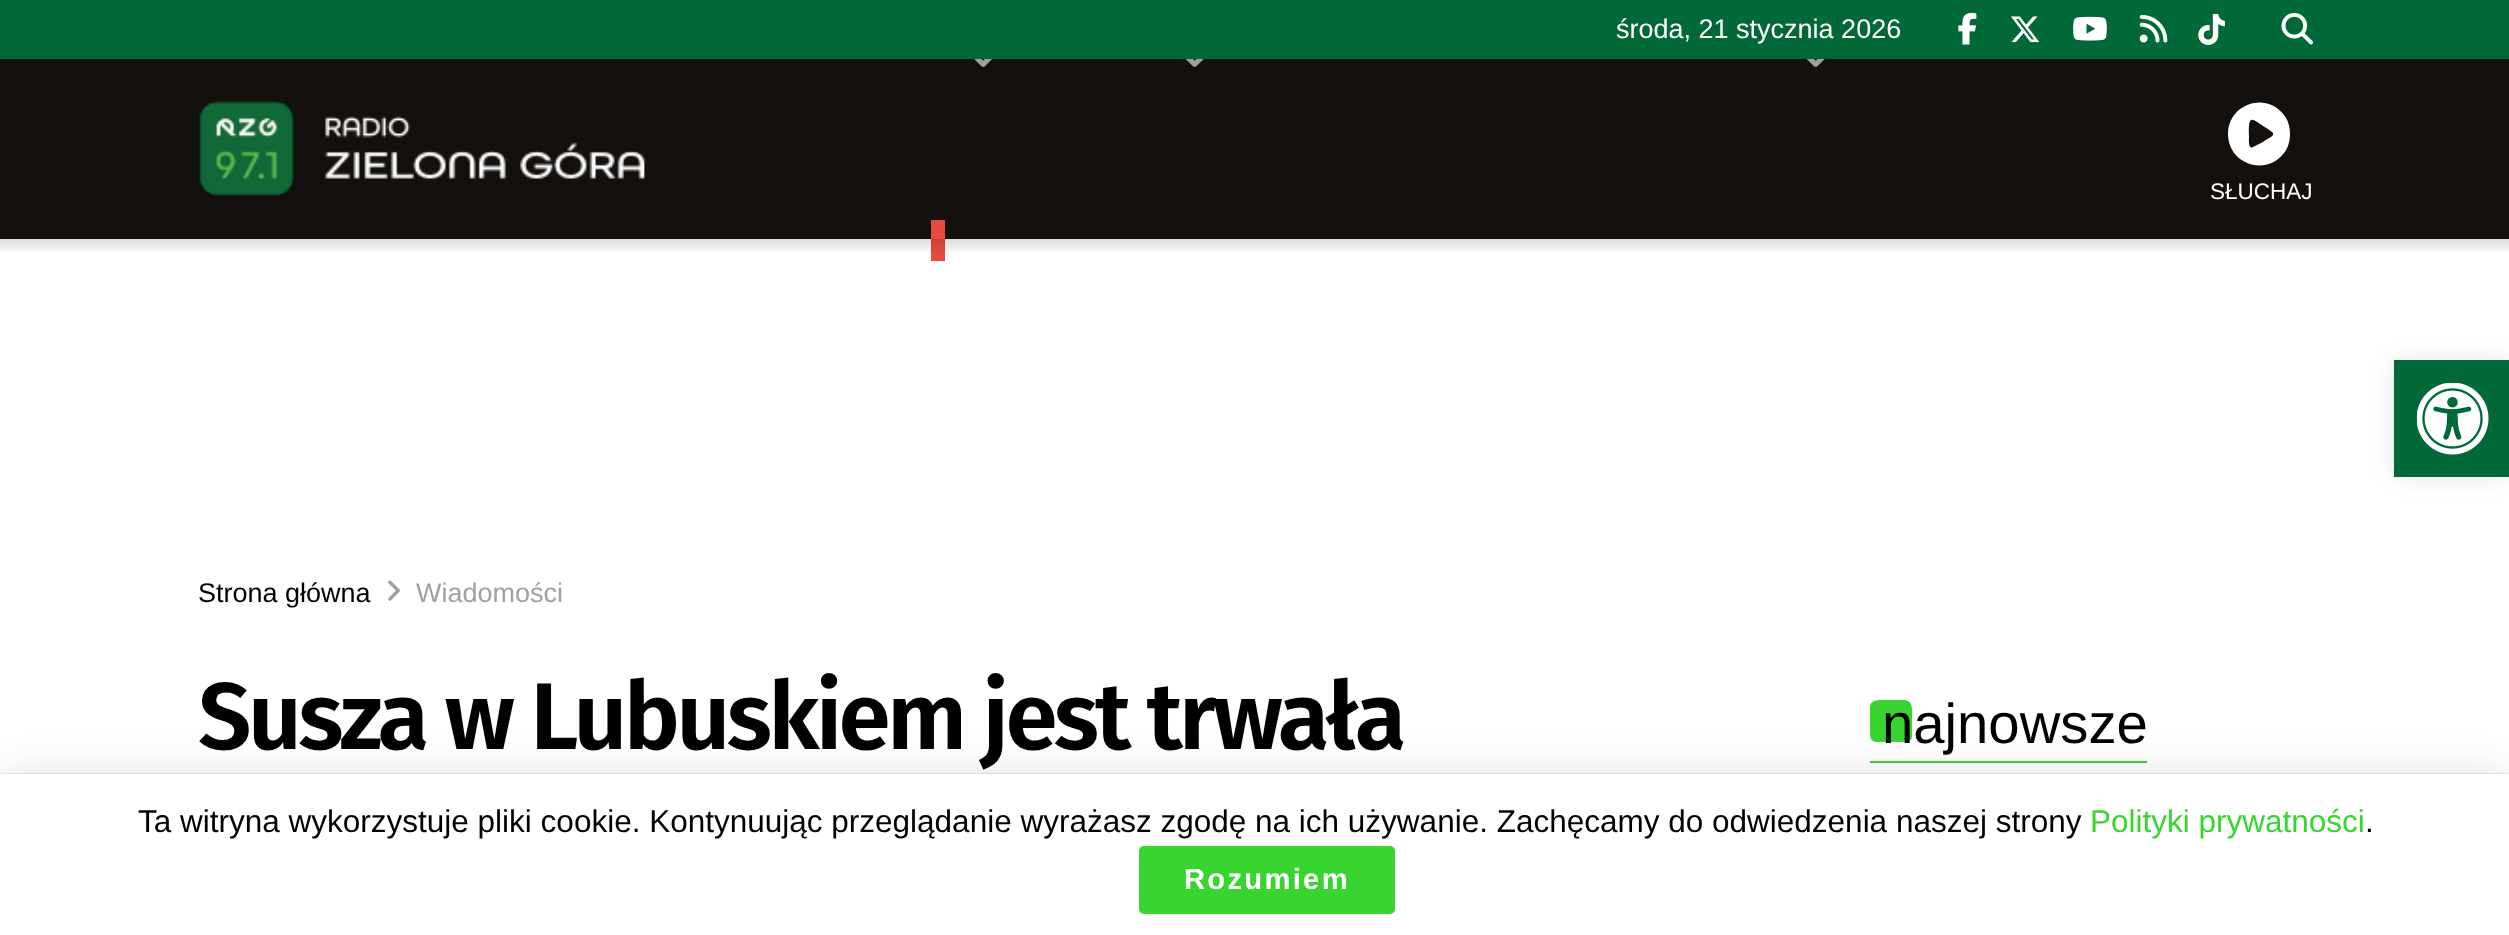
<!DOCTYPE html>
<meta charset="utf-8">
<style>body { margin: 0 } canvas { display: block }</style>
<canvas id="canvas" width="2509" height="935"></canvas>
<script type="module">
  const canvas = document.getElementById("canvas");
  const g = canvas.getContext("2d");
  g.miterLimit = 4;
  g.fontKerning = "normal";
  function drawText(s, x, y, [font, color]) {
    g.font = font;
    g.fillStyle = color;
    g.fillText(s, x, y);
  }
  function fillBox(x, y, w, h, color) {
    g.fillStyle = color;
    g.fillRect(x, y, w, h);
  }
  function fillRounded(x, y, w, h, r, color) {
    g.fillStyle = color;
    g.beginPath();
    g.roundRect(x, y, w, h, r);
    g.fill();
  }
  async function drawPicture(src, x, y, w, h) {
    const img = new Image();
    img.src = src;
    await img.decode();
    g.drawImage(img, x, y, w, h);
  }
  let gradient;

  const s1 = ["27px Liberation Sans", "#FFFFFF"];
  const s2 = ["22.5px Liberation Sans", "#FFFFFF"];
  const s3 = ["27px Liberation Sans", "#000000"];
  const s4 = ["27px Liberation Sans", "#A0A0A0"];
  const s5 = ["600 94.5px Fira Sans", "#000000"];
  const s6 = ["56.25px Liberation Sans", "#000000"];
  const s7 = ["31.5px Liberation Sans", "#000000"];
  const s8 = ["31.5px Liberation Sans", "#38D430"];
  const s9 = ["bold 29.25px Liberation Sans", "#FFFFFF"];

  fillBox(0, 0, 2509, 935, "#FFFFFF");
  fillBox(0, 0, 2509, 59, "#006937");
  drawText("środa, 21 stycznia 2026", 1616, 38, s1);
  await drawPicture("pic1.png", 1958, 12, 19, 33);
  await drawPicture("pic2.png", 2011, 16, 29, 27);
  await drawPicture("pic3.png", 2073, 16, 34, 25);
  await drawPicture("pic4.png", 2139, 14, 29, 29);
  await drawPicture("pic5.png", 2198, 14, 27, 31);
  await drawPicture("pic6.png", 2281, 12, 32, 33);
  fillBox(0, 59, 2509, 180, "#13100D");
  await drawPicture("pic7.png", 199, 101, 446, 95);
  await drawPicture("pic8.png", 974, 59, 18, 8);
  await drawPicture("pic9.png", 1185, 59, 19, 8);
  await drawPicture("pic9.png", 1806, 59, 19, 8);
  fillBox(931, 220, 14, 41, "#E84A3F");
  g.fillStyle = "#FFFFFF";
  g.beginPath();
  g.moveTo(2228, 134);
  g.bezierCurveTo(2228, 104, 2266, 91, 2284, 115);
  g.bezierCurveTo(2288, 120, 2290, 127, 2290, 134);
  g.bezierCurveTo(2290, 141, 2288, 148, 2284, 153);
  g.bezierCurveTo(2266, 177, 2228, 164, 2228, 134);
  g.closePath();
  g.moveTo(2251, 120);
  g.bezierCurveTo(2248, 122, 2249, 134, 2249, 137);
  g.bezierCurveTo(2249, 139, 2248, 150, 2253, 147);
  g.lineTo(2263, 142);
  g.bezierCurveTo(2265, 140, 2272, 137, 2273, 135);
  g.bezierCurveTo(2274, 132, 2270, 131, 2268, 129);
  g.lineTo(2263, 126);
  g.bezierCurveTo(2260, 124, 2254, 119, 2251, 120);
  g.closePath();
  g.fill();
  drawText("SŁUCHAJ", 2210, 199, s2);
  gradient = g.createLinearGradient(1256, 238, 1256, 254);
  gradient.addColorStop(0, "rgba(0, 0, 0, 0.15)");
  gradient.addColorStop(1, "rgba(0, 0, 0, 0)");
  g.fillStyle = gradient;
  g.fillRect(0, 239, 2509, 13);
  drawText("Strona główna", 198, 602, s3);
  await drawPicture("pic10.png", 388, 580, 12, 21);
  drawText("Wiadomości", 416, 602, s4);
  g.letterSpacing = "-3.75px";
  drawText("Susza w Lubuskiem jest trwała", 198, 749, s5);
  fillBox(1870, 761, 277, 2, "#38D430");
  g.beginPath();
  g.moveTo(1870, 707);
  g.bezierCurveTo(1870, 701, 1876, 700, 1881, 700);
  g.lineTo(1906, 700);
  g.bezierCurveTo(1912, 702, 1912, 707, 1912, 712);
  g.lineTo(1912, 737);
  g.bezierCurveTo(1911, 743, 1905, 742, 1900, 742);
  g.lineTo(1886, 742);
  g.bezierCurveTo(1874, 742, 1870, 744, 1870, 731);
  g.closePath();
  g.fill();
  g.letterSpacing = "0px";
  drawText("najnowsze", 1882, 743, s6);
  g.fillStyle = "rgba(0, 0, 0, 0.1)";
  g.filter = "blur(11px)";
  g.beginPath();
  g.rect(2394, 360, 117, 117);
  g.fill();
  g.filter = "none";
  fillBox(2394, 360, 115, 117, "#006937");
  await drawPicture("pic11.png", 2417, 383, 72, 72);
  g.fillStyle = "rgba(0, 0, 0, 0.15)";
  g.filter = "blur(22.5px)";
  g.beginPath();
  g.rect(0, 779, 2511, 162);
  g.fill();
  g.filter = "none";
  g.fillStyle = "rgba(0, 0, 0, 0.2)";
  g.filter = "blur(1px)";
  g.beginPath();
  g.rect(0, 774, 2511, 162);
  g.fill();
  g.filter = "none";
  fillBox(0, 774, 2509, 161, "#FFFFFF");
  drawText("Ta witryna wykorzystuje pliki cookie. Kontynuując przeglądanie wyrażasz zgodę na ich używanie. Zachęcamy do odwiedzenia naszej strony", 138, 832, s7);
  drawText("Polityki prywatności", 2090, 832, s8);
  drawText(".", 2365, 832, s7);
  fillRounded(1139, 846, 256, 68, 5, "#38D430");
  g.letterSpacing = "2.25px";
  drawText("Rozumiem", 1184, 889, s9);
</script>
